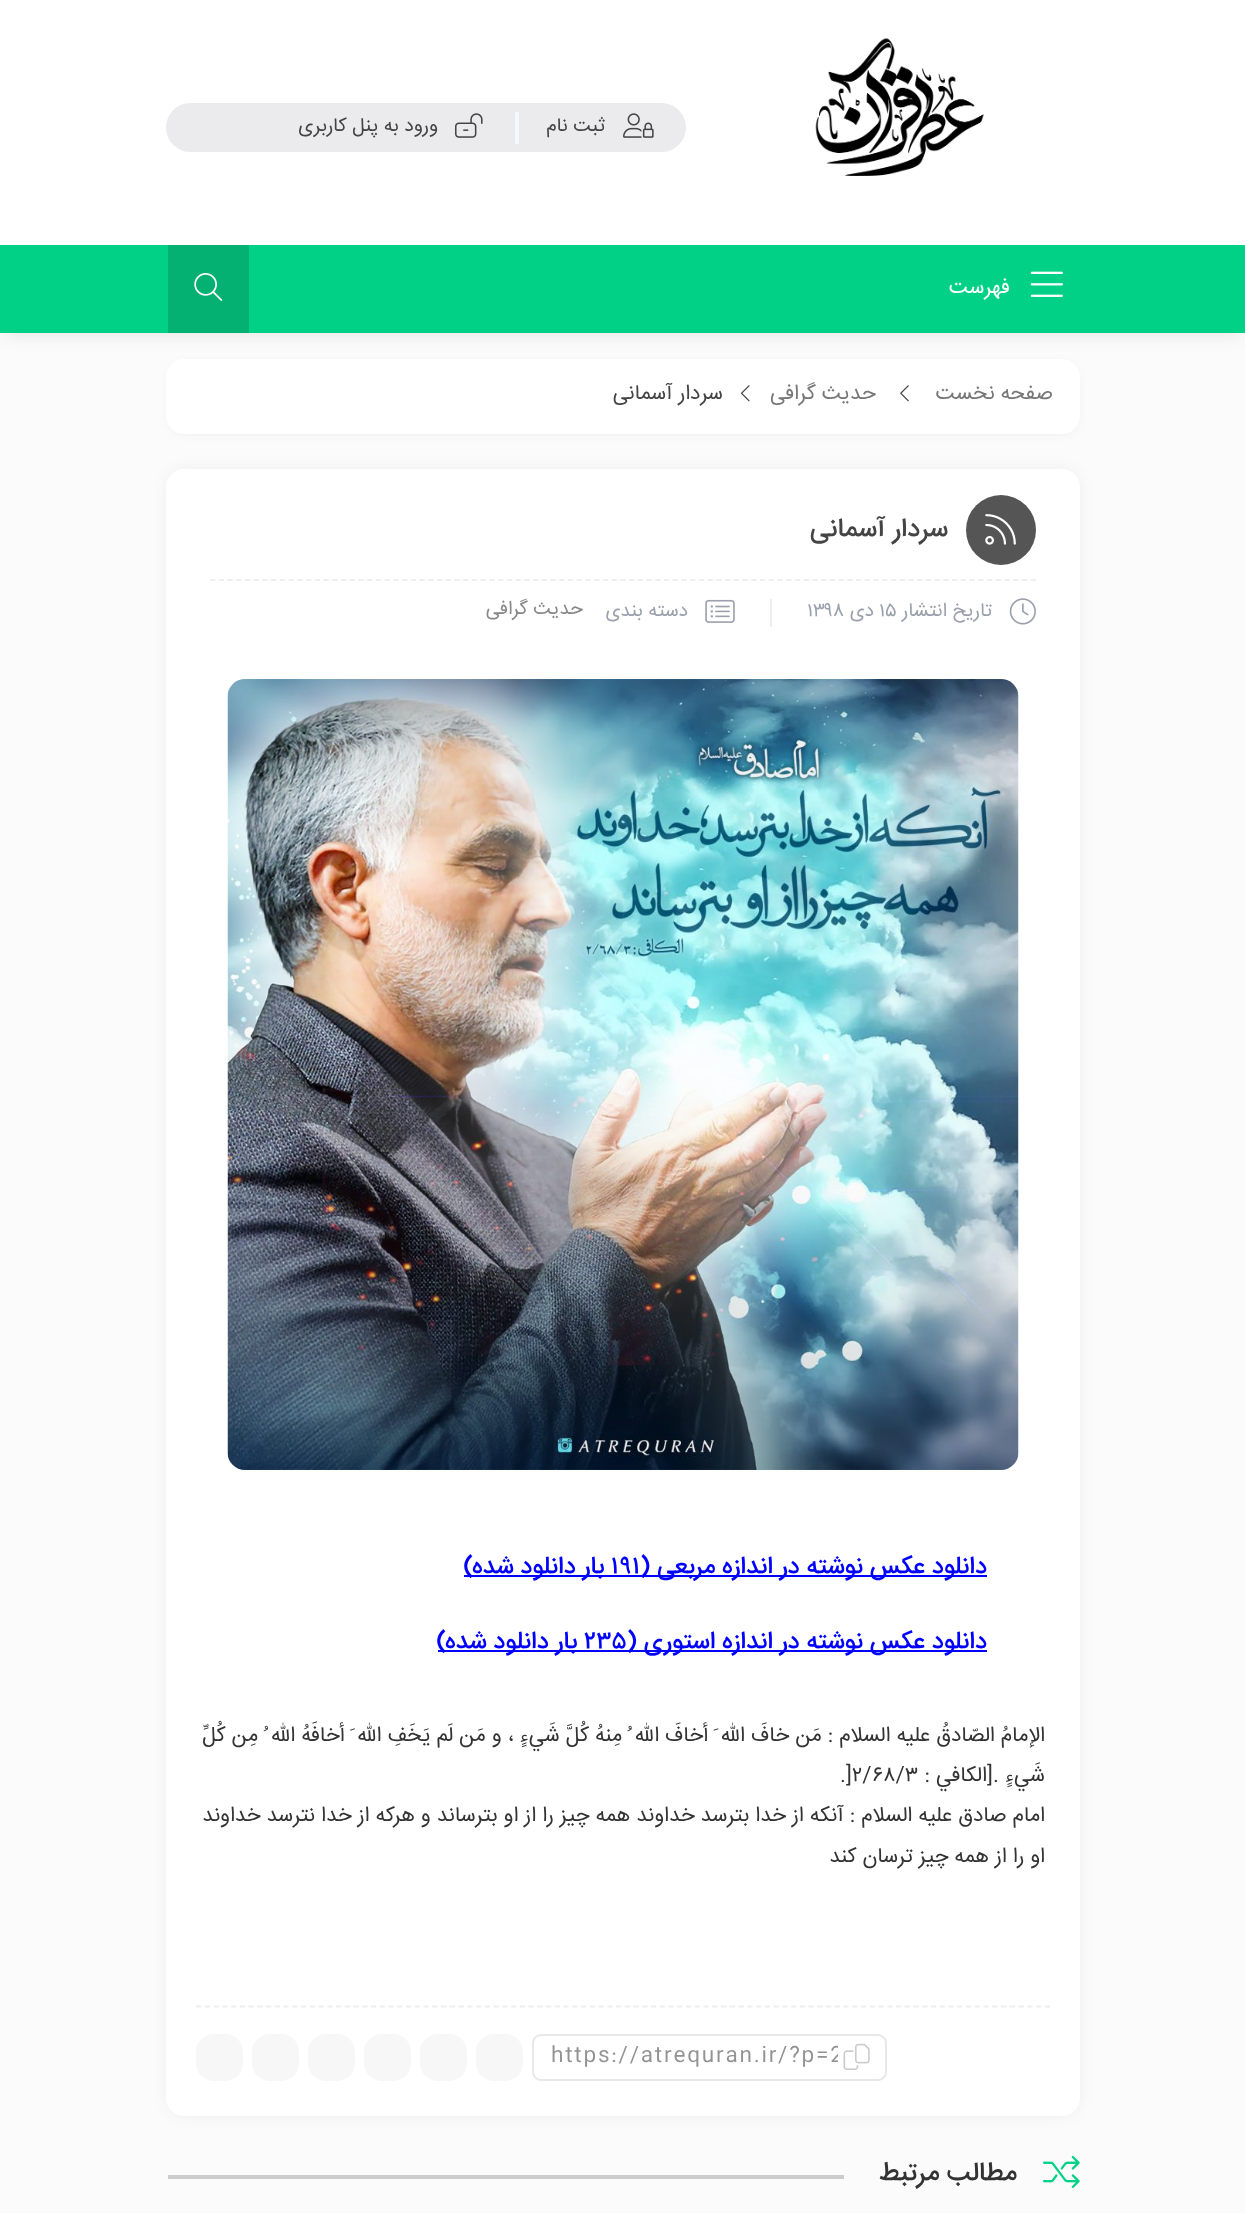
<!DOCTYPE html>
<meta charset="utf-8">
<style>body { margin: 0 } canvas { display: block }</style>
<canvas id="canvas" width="1245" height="2213"></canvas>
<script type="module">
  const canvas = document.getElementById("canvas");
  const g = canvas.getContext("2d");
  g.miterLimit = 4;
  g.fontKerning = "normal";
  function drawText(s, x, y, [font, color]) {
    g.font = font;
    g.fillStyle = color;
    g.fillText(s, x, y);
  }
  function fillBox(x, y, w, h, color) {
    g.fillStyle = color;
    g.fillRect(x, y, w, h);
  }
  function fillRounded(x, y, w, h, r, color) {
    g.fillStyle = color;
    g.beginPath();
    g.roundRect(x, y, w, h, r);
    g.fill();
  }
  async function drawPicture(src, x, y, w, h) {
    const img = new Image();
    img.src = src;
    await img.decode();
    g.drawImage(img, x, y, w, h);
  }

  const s1 = ["19.25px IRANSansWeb", "#444444"];
  const s2 = ["21px IRANSansWeb", "#FFFFFF"];
  const s3 = ["21px IRANSansWeb", "#777777"];
  const s4 = ["21px IRANSansWeb", "#444444"];
  const s5 = ["500 26.25px IRANSansWeb", "#444444"];
  const s6 = ["19.25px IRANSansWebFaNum", "#9AA0AC"];
  const s7 = ["19.25px IRANSansWebFaNum", "#888888"];
  const s8 = ["500 24.5px IRANSansWeb", "#0000FF"];
  const s9 = ["21px IRANSansWeb", "#333333"];
  const s10 = ["21px IRANSansWeb", "#929292"];
  const s11 = ["500 26.25px IRANSansWeb", "#333333"];

  fillBox(0, 0, 1245, 2213, "#FBFBFC");
  g.fillStyle = "rgba(0, 0, 0, 0.1)";
  g.filter = "blur(6px)";
  g.beginPath();
  g.roundRect(172, 366, 903, 65, 12);
  g.fill();
  g.filter = "none";
  fillRounded(166, 359, 914, 75, 18, "#FFFFFF");
  g.fillStyle = "rgba(0, 0, 0, 0.1)";
  g.filter = "blur(9.5px)";
  g.beginPath();
  g.rect(5, 11, 1236, 322);
  g.fill();
  g.filter = "none";
  fillBox(0, 0, 1245, 245, "#FFFFFF");
  await drawPicture("pic1.png", 815, 38, 169, 138);
  fillRounded(166, 103, 520, 49, 24.5, "#EBEBED");
  await drawPicture("pic2.png", 623, 113, 31, 25);
  g.direction = "rtl";
  drawText("ثبت نام", 605, 131, s1);
  fillBox(515, 112, 4, 32, "#F7F8FB");
  await drawPicture("pic3.png", 455, 113, 28, 25);
  drawText("ورود به پنل کاربری", 438, 131, s1);
  fillBox(0, 245, 1245, 88, "#00D186");
  await drawPicture("pic4.png", 1030, 271, 33, 26);
  drawText("فهرست", 1010, 293, s2);
  fillBox(168, 245, 81, 88, "#04B072");
  await drawPicture("pic5.png", 194, 273, 29, 28);
  drawText("صفحه نخست", 1053, 399, s3);
  await drawPicture("pic6.png", 900, 385, 9, 17);
  drawText("حدیث گرافی", 876, 399, s3);
  await drawPicture("pic7.png", 740, 385, 10, 17);
  drawText("سردار آسمانی", 723, 399, s4);
  g.fillStyle = "rgba(0, 0, 0, 0.1)";
  g.filter = "blur(9px)";
  g.beginPath();
  g.roundRect(172, 474, 903, 1637, 12);
  g.fill();
  g.filter = "none";
  fillRounded(166, 469, 914, 1647, 18, "#FFFFFF");
  g.fillStyle = "#555555";
  g.beginPath();
  g.arc(1001, 530, 35, 0, Math.PI * 2);
  g.fill();
  await drawPicture("pic8.png", 985, 514, 31, 31);
  drawText("سردار آسمانی", 948, 536, s5);
  g.beginPath();
  g.moveTo(210, 580);
  g.lineTo(1036, 580);
  g.strokeStyle = "#EEEFF1";
  g.lineWidth = 1.8;
  g.setLineDash([5.25, 3.48]);
  g.stroke();
  fillBox(770, 599, 2, 28, "#EEEFF1");
  await drawPicture("pic9.png", 1009, 598, 27, 27);
  drawText("تاریخ انتشار", 992, 616, s6);
  g.direction = "ltr";
  drawText("۱۵", 879, 616, s6);
  g.direction = "rtl";
  drawText("دی", 874, 616, s6);
  g.direction = "ltr";
  drawText("۱۳۹۸", 807, 616, s6);
  await drawPicture("pic10.png", 705, 599, 30, 24);
  g.direction = "rtl";
  drawText("دسته بندی", 688, 616, s6);
  drawText("حدیث گرافی", 583, 614, s7);
  await drawPicture("pic11.png", 227, 679, 792, 791);
  fillBox(464, 1575, 523, 2, "#0000FF");
  drawText("دانلود عکس نوشته در اندازه مربعی (", 987, 1573, s8);
  g.direction = "ltr";
  drawText("۱۹۱", 611, 1573, s8);
  g.direction = "rtl";
  drawText("بار دانلود شده)", 604, 1573, s8);
  fillBox(438, 1650, 549, 2, "#0000FF");
  drawText("دانلود عکس نوشته در اندازه استوری (", 987, 1648, s8);
  g.direction = "ltr";
  drawText("۲۳۵", 584, 1648, s8);
  g.direction = "rtl";
  drawText("بار دانلود شده)", 577, 1648, s8);
  g.wordSpacing = "0.1px";
  drawText("الإمامُ الصّادقُ عليه السلام : مَن خافَ اللّه َ أخافَ اللّه ُ مِنهُ كُلَّ شَيءٍ ، و مَن لَم يَخَفِ اللّه َ أخافَهُ اللّه ُ مِن كُلِّ", 1045, 1741, s9);
  g.wordSpacing = "0px";
  drawText("شَيءٍ .[الكافي :", 1045, 1781, s9);
  g.direction = "ltr";
  drawText(".]۲/۶۸/۳", 840, 1781, s9);
  g.wordSpacing = "0.1px";
  g.direction = "rtl";
  drawText("امام صادق عليه السلام : آنکه از خدا بترسد خداوند همه چيز را از او بترساند و هركه از خدا نترسد خداوند", 1045, 1821, s9);
  g.wordSpacing = "0px";
  drawText("او را از همه چيز ترسان كند", 1045, 1862, s9);
  g.beginPath();
  g.moveTo(196, 2006.5);
  g.lineTo(1050, 2006.5);
  g.strokeStyle = "#EEEEEE";
  g.setLineDash([5.25, 3.5]);
  g.stroke();
  g.beginPath();
  g.roundRect(533, 2035, 353, 45, 8);
  g.strokeStyle = "#E8E8E8";
  g.lineWidth = 2;
  g.setLineDash([]);
  g.stroke();
  await drawPicture("pic12.png", 843, 2043, 27, 27);
  g.save();
  g.beginPath();
  g.rect(551, 2042, 287, 30);
  g.clip();
  g.letterSpacing = "1.75px";
  g.direction = "ltr";
  drawText("https://atrequran.ir/?p=2", 551, 2061, s10);
  g.restore();
  fillRounded(476, 2034, 47, 47, 18, "#F7F7F7");
  fillRounded(420, 2034, 47, 47, 18, "#F7F7F7");
  fillRounded(364, 2034, 47, 47, 18, "#F7F7F7");
  fillRounded(308, 2034, 47, 47, 18, "#F7F7F7");
  fillRounded(252, 2034, 47, 47, 18, "#F7F7F7");
  fillRounded(196, 2034, 47, 47, 18, "#F7F7F7");
  await drawPicture("pic13.png", 1043, 2155, 37, 33);
  drawText("مطالب مرتبط", 1017, 2180, s11);
  fillBox(168, 2175, 676, 4, "#CCCCCC");
</script>
